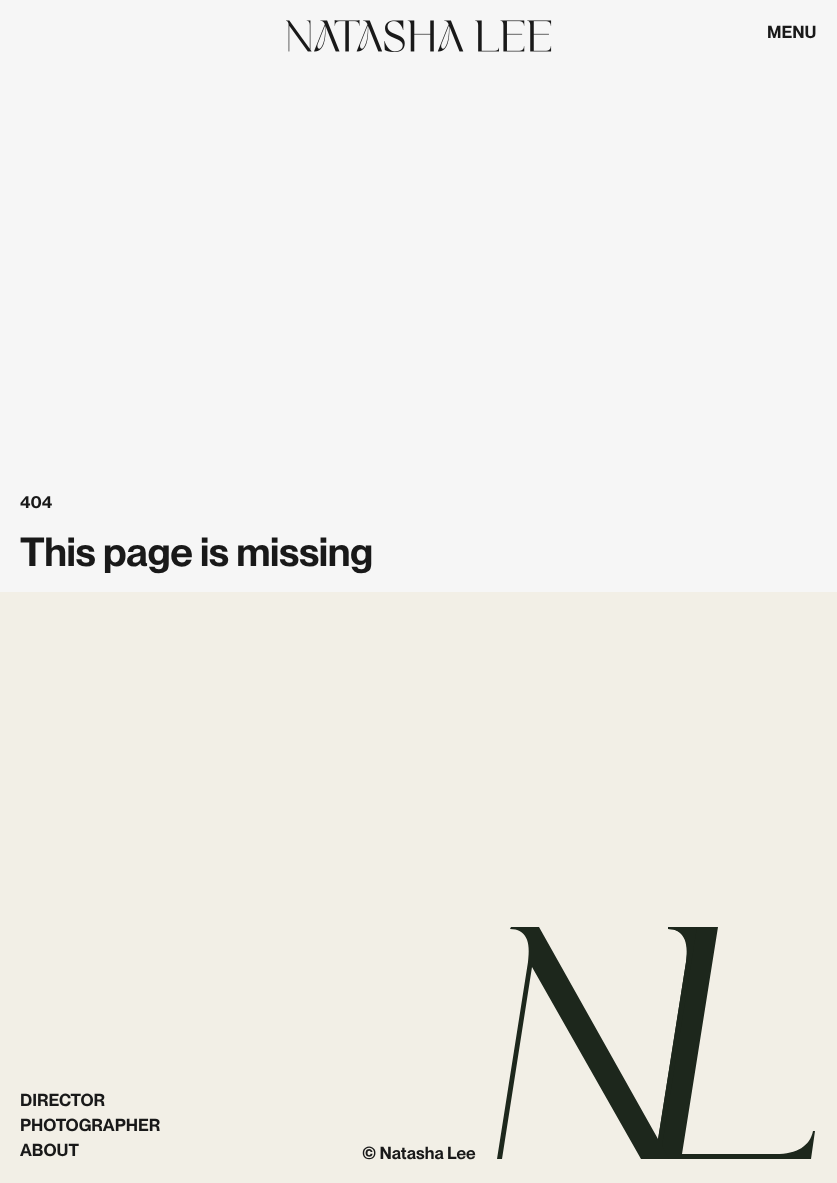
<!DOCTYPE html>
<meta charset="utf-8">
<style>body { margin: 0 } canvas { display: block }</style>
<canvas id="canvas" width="837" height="1183"></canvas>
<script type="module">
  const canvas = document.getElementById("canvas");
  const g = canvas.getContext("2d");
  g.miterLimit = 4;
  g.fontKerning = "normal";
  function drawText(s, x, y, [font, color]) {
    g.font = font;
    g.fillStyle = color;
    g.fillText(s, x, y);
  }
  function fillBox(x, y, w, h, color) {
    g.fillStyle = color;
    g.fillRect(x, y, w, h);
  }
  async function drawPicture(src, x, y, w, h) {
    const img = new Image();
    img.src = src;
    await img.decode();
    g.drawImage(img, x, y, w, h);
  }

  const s1 = ["600 17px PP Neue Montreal", "#191919"];
  const s2 = ["600 40px PP Neue Montreal", "#191919"];

  fillBox(0, 0, 837, 1183, "#F6F6F6");
  await drawPicture("pic1.png", 286, 20, 266, 32);
  drawText("MENU", 767, 38, s1);
  drawText("404", 20, 508, s1);
  g.letterSpacing = "-0.4px";
  drawText("This page is missing", 20, 566, s2);
  fillBox(0, 592, 837, 591, "#F2EFE6");
  g.letterSpacing = "0px";
  drawText("DIRECTOR", 20, 1106, s1);
  drawText("PHOTOGRAPHER", 20, 1131, s1);
  drawText("ABOUT", 20, 1156, s1);
  drawText("© Natasha Lee", 362, 1159, s1);
  g.fillStyle = "#1D271C";
  g.beginPath();
  g.moveTo(668, 929);
  g.lineTo(668, 927);
  g.lineTo(718, 927);
  g.lineTo(682, 1154);
  g.lineTo(776, 1154);
  g.bezierCurveTo(797, 1154, 810, 1146, 813, 1131);
  g.lineTo(815, 1131);
  g.lineTo(811, 1159);
  g.lineTo(655, 1159);
  g.lineTo(686, 962);
  g.bezierCurveTo(689, 941, 683, 929, 668, 929);
  g.closePath();
  g.fill();
  g.beginPath();
  g.moveTo(510, 929);
  g.lineTo(511, 927);
  g.lineTo(539, 927);
  g.lineTo(658, 1139);
  g.lineTo(686, 962);
  g.bezierCurveTo(690, 941, 684, 929, 668, 929);
  g.lineTo(669, 927);
  g.lineTo(697, 927);
  g.lineTo(662, 1146);
  g.lineTo(669, 1159);
  g.lineTo(641, 1159);
  g.lineTo(532, 967);
  g.lineTo(502, 1159);
  g.lineTo(497, 1159);
  g.lineTo(528, 962);
  g.bezierCurveTo(531, 941, 526, 929, 510, 929);
  g.closePath();
  g.fill();
</script>
